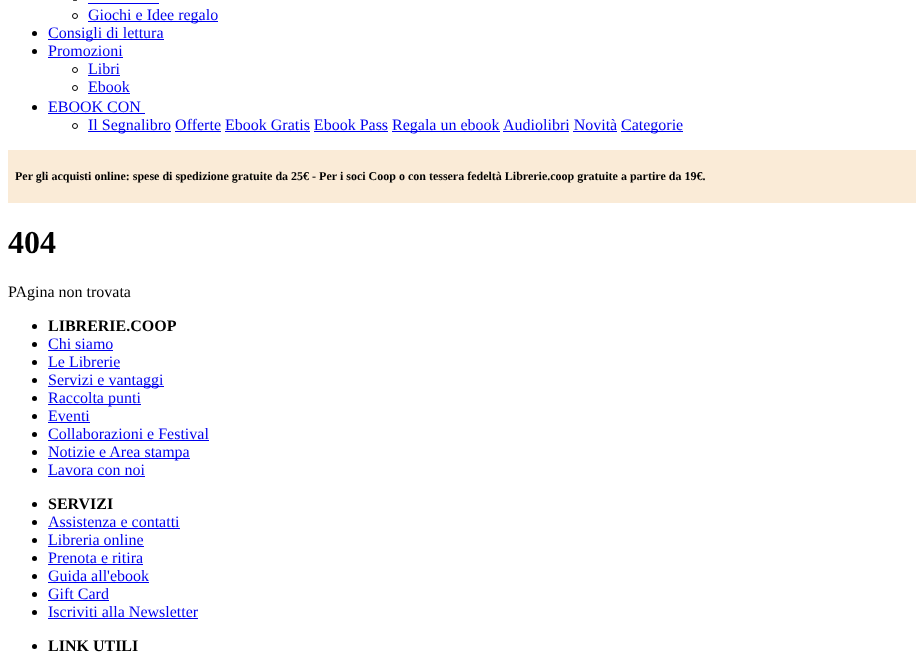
<!DOCTYPE html>
<meta charset="utf-8">
<style>body { margin: 0 } canvas { display: block }</style>
<canvas id="canvas" width="924" height="662"></canvas>
<script type="module">
  const canvas = document.getElementById("canvas");
  const g = canvas.getContext("2d");
  g.miterLimit = 4;
  g.fontKerning = "normal";
  function drawText(s, x, y, [font, color]) {
    g.font = font;
    g.fillStyle = color;
    g.fillText(s, x, y);
  }
  function fillBox(x, y, w, h, color) {
    g.fillStyle = color;
    g.fillRect(x, y, w, h);
  }

  const s1 = ["16px Liberation Serif", "#0000EE"];
  const s2 = ["bold 12px Liberation Serif", "#000000"];
  const s3 = ["bold 32px Liberation Serif", "#000000"];
  const s4 = ["16px Liberation Serif", "#000000"];
  const s5 = ["bold 16px Liberation Serif", "#000000"];

  fillBox(0, 0, 924, 662, "#FFFFFF");
  g.beginPath();
  g.roundRect(72.5, -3.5, 5, 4, 2.5);
  g.strokeStyle = "#000000";
  g.stroke();
  fillBox(88, 3, 71, 1, "#0000EE");
  g.beginPath();
  g.arc(75, 16, 2.5, 0, Math.PI * 2);
  g.stroke();
  fillBox(88, 21, 130, 1, "#0000EE");
  drawText("Giochi e Idee regalo", 88, 20, s1);
  g.fillStyle = "#000000";
  g.beginPath();
  g.arc(34.5, 33.5, 2.5, 0, Math.PI * 2);
  g.fill();
  fillBox(48, 39, 116, 1, "#0000EE");
  drawText("Consigli di lettura", 48, 38, s1);
  g.fillStyle = "#000000";
  g.beginPath();
  g.arc(34.5, 51.5, 2.5, 0, Math.PI * 2);
  g.fill();
  drawText("Promozioni", 48, 56, s1);
  fillBox(48, 57, 75, 1, "#0000EE");
  g.beginPath();
  g.arc(75, 70, 2.5, 0, Math.PI * 2);
  g.stroke();
  drawText("Libri", 88, 74, s1);
  fillBox(88, 75, 32, 1, "#0000EE");
  g.beginPath();
  g.arc(75, 88, 2.5, 0, Math.PI * 2);
  g.stroke();
  drawText("Ebook", 88, 92, s1);
  fillBox(88, 93, 42, 1, "#0000EE");
  g.fillStyle = "#000000";
  g.beginPath();
  g.arc(34.5, 107.5, 2.5, 0, Math.PI * 2);
  g.fill();
  drawText("EBOOK CON", 48, 112, s1);
  fillBox(48, 113, 97, 1, "#0000EE");
  g.beginPath();
  g.arc(75, 126, 2.5, 0, Math.PI * 2);
  g.stroke();
  fillBox(88, 131, 83, 1, "#0000EE");
  drawText("Il Segnalibro Offerte Ebook Gratis Ebook Pass", 88, 130, s1);
  fillBox(392, 131, 108, 1, "#0000EE");
  drawText("Regala un ebook", 392, 130, s1);
  drawText("Audiolibri Novità", 503, 130, s1);
  fillBox(503, 131, 66, 1, "#0000EE");
  fillBox(621, 131, 62, 1, "#0000EE");
  drawText("Categorie", 621, 130, s1);
  fillBox(175, 131, 46, 1, "#0000EE");
  fillBox(225, 131, 85, 1, "#0000EE");
  fillBox(314, 131, 74, 1, "#0000EE");
  fillBox(573, 131, 44, 1, "#0000EE");
  fillBox(8, 150, 908, 53, "#FAEBD7");
  drawText("Per gli acquisti online: spese di spedizione gratuite da 25€ - Per i soci Coop o con tessera fedeltà Librerie.coop gratuite a partire da 19€.", 15, 180, s2);
  drawText("404", 8, 253, s3);
  drawText("PAgina non trovata", 8, 297, s4);
  g.beginPath();
  g.arc(34.5, 326.5, 2.5, 0, Math.PI * 2);
  g.fill();
  drawText("LIBRERIE.COOP", 48, 331, s5);
  g.beginPath();
  g.arc(34.5, 344.5, 2.5, 0, Math.PI * 2);
  g.fill();
  drawText("Chi siamo", 48, 349, s1);
  fillBox(48, 350, 65, 1, "#0000EE");
  g.fillStyle = "#000000";
  g.beginPath();
  g.arc(34.5, 362.5, 2.5, 0, Math.PI * 2);
  g.fill();
  drawText("Le Librerie", 48, 367, s1);
  fillBox(48, 368, 72, 1, "#0000EE");
  g.fillStyle = "#000000";
  g.beginPath();
  g.arc(34.5, 380.5, 2.5, 0, Math.PI * 2);
  g.fill();
  fillBox(48, 386, 116, 1, "#0000EE");
  drawText("Servizi e vantaggi", 48, 385, s1);
  g.fillStyle = "#000000";
  g.beginPath();
  g.arc(34.5, 398.5, 2.5, 0, Math.PI * 2);
  g.fill();
  fillBox(48, 404, 93, 1, "#0000EE");
  drawText("Raccolta punti", 48, 403, s1);
  g.fillStyle = "#000000";
  g.beginPath();
  g.arc(34.5, 416.5, 2.5, 0, Math.PI * 2);
  g.fill();
  drawText("Eventi", 48, 421, s1);
  fillBox(48, 422, 42, 1, "#0000EE");
  g.fillStyle = "#000000";
  g.beginPath();
  g.arc(34.5, 434.5, 2.5, 0, Math.PI * 2);
  g.fill();
  drawText("Collaborazioni e Festival", 48, 439, s1);
  fillBox(48, 440, 161, 1, "#0000EE");
  g.fillStyle = "#000000";
  g.beginPath();
  g.arc(34.5, 452.5, 2.5, 0, Math.PI * 2);
  g.fill();
  fillBox(48, 458, 142, 1, "#0000EE");
  drawText("Notizie e Area stampa", 48, 457, s1);
  g.fillStyle = "#000000";
  g.beginPath();
  g.arc(34.5, 470.5, 2.5, 0, Math.PI * 2);
  g.fill();
  drawText("Lavora con noi", 48, 475, s1);
  fillBox(48, 476, 97, 1, "#0000EE");
  g.fillStyle = "#000000";
  g.beginPath();
  g.arc(34.5, 504.5, 2.5, 0, Math.PI * 2);
  g.fill();
  drawText("SERVIZI", 48, 509, s5);
  g.beginPath();
  g.arc(34.5, 522.5, 2.5, 0, Math.PI * 2);
  g.fill();
  drawText("Assistenza e contatti", 48, 527, s1);
  fillBox(48, 528, 132, 1, "#0000EE");
  g.fillStyle = "#000000";
  g.beginPath();
  g.arc(34.5, 540.5, 2.5, 0, Math.PI * 2);
  g.fill();
  drawText("Libreria online", 48, 545, s1);
  fillBox(48, 546, 96, 1, "#0000EE");
  g.fillStyle = "#000000";
  g.beginPath();
  g.arc(34.5, 558.5, 2.5, 0, Math.PI * 2);
  g.fill();
  drawText("Prenota e ritira", 48, 563, s1);
  fillBox(48, 564, 95, 1, "#0000EE");
  g.fillStyle = "#000000";
  g.beginPath();
  g.arc(34.5, 576.5, 2.5, 0, Math.PI * 2);
  g.fill();
  drawText("Guida all'ebook", 48, 581, s1);
  fillBox(48, 582, 101, 1, "#0000EE");
  g.fillStyle = "#000000";
  g.beginPath();
  g.arc(34.5, 594.5, 2.5, 0, Math.PI * 2);
  g.fill();
  drawText("Gift Card", 48, 599, s1);
  fillBox(48, 600, 61, 1, "#0000EE");
  g.fillStyle = "#000000";
  g.beginPath();
  g.arc(34.5, 612.5, 2.5, 0, Math.PI * 2);
  g.fill();
  drawText("Iscriviti alla Newsletter", 48, 617, s1);
  fillBox(48, 618, 150, 1, "#0000EE");
  g.fillStyle = "#000000";
  g.beginPath();
  g.arc(34.5, 646.5, 2.5, 0, Math.PI * 2);
  g.fill();
  drawText("LINK UTILI", 48, 651, s5);
</script>
